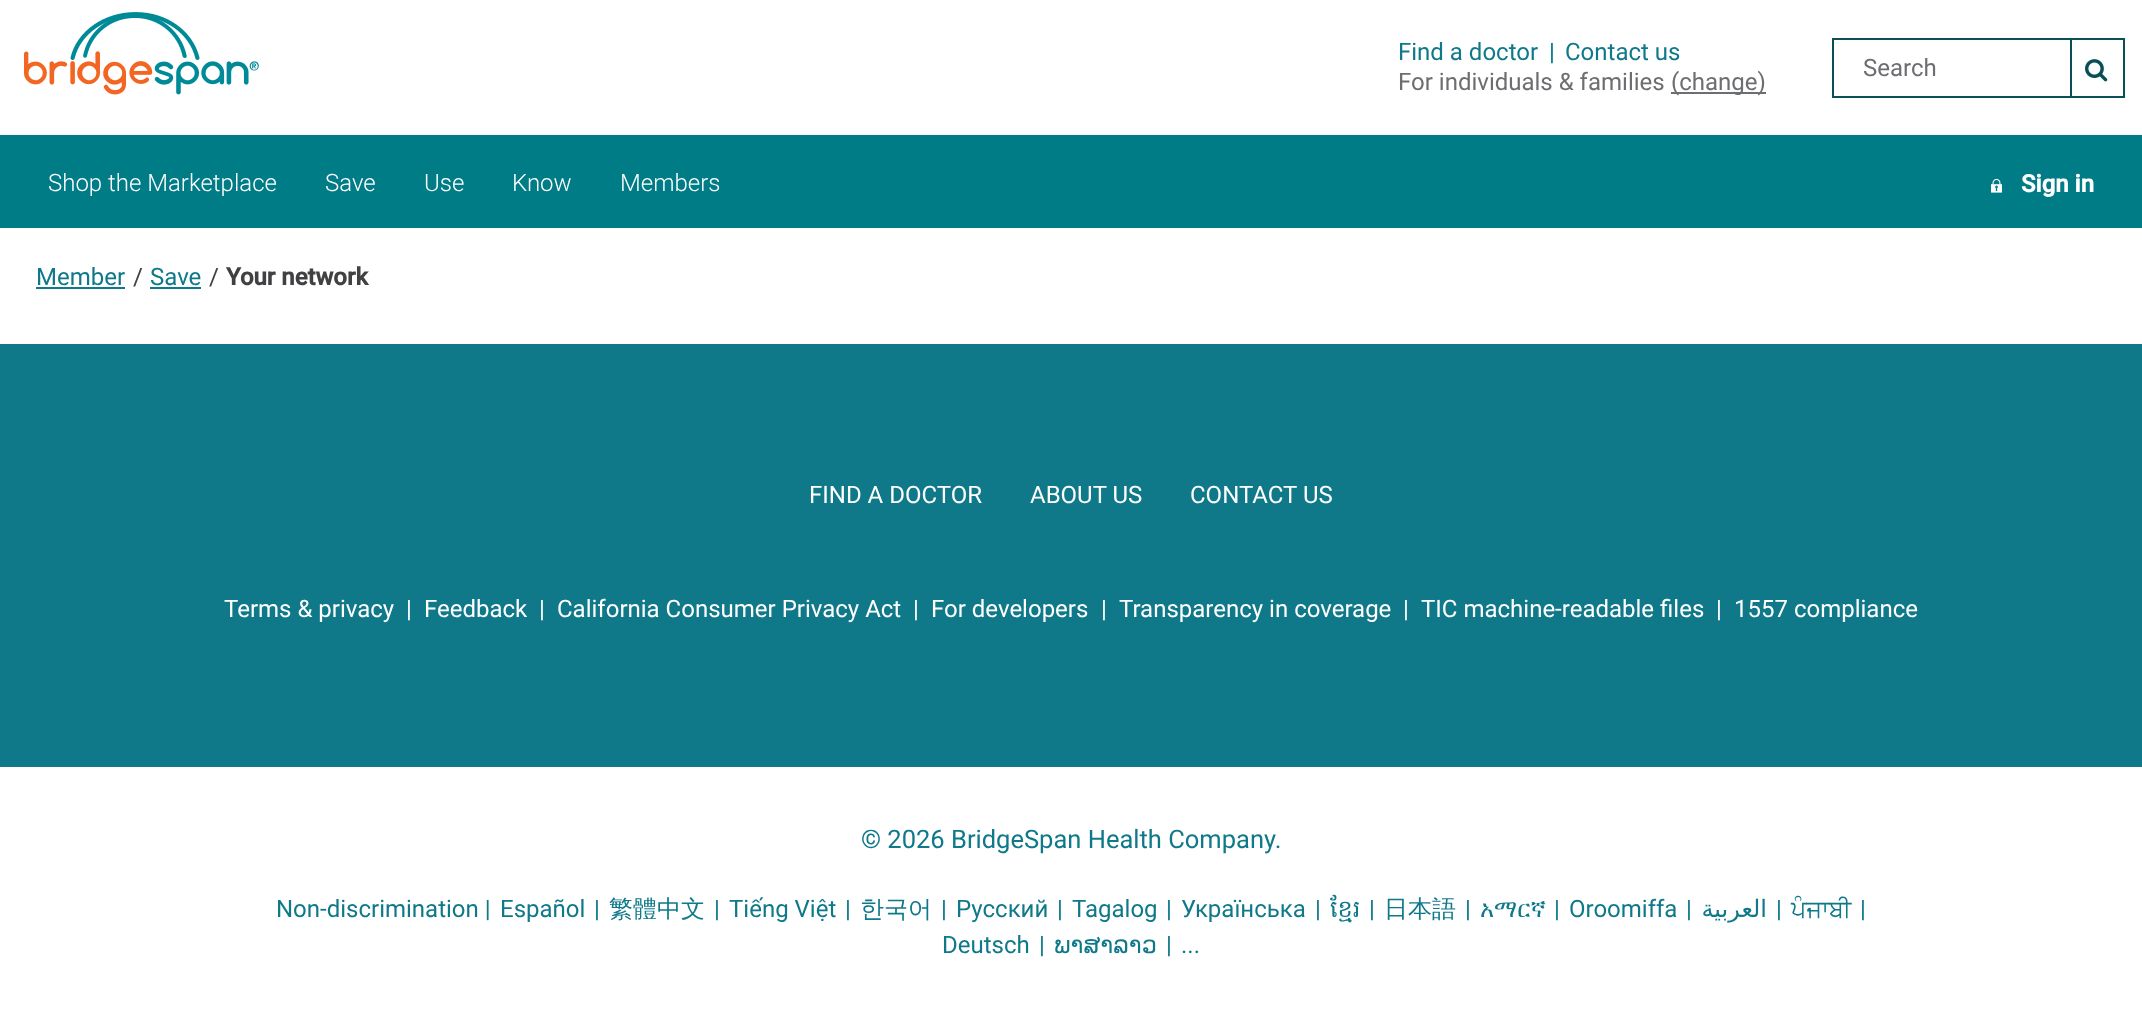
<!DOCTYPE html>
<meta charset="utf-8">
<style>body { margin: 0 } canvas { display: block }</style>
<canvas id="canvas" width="2142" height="1026"></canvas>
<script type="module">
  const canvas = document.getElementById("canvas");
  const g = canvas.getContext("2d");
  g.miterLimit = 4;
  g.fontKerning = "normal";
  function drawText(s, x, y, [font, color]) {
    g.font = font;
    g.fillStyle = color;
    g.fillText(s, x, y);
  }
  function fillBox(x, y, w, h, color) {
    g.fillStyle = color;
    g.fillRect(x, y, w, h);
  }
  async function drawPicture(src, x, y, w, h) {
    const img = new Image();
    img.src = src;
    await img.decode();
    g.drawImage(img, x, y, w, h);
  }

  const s1 = ["24px Roboto", "#0F798A"];
  const s2 = ["24px Roboto", "#007C87"];
  const s3 = ["24px Roboto", "#6D6E71"];
  const s4 = ["300 24px Roboto", "#FFFFFF"];
  const s5 = ["bold 24px Roboto", "#FFFFFF"];
  const s6 = ["24px Roboto", "#414042"];
  const s7 = ["bold 24px Roboto", "#414042"];
  const s8 = ["24px Roboto", "#FFFFFF"];
  const s9 = ["25.5px Roboto", "#0F798A"];
  const s10 = ["500 24px WenQuanYi Zen Hei", "#0F798A"];
  const s11 = ["24px Hanuman", "#0F798A"];
  const s12 = ["24px FreeSerif", "#0F798A"];
  const s13 = ["24px DejaVu Sans", "#0F798A"];
  const s14 = ["24px FreeSans", "#0F798A"];

  fillBox(0, 0, 2142, 1026, "#FFFFFF");
  await drawPicture("pic1.png", 24, 12, 235, 83);
  drawText("Find a doctor", 1398, 60, s1);
  drawText("|", 1549, 60, s2);
  drawText("Contact us", 1565, 60, s1);
  drawText("For individuals & families", 1398, 90, s3);
  fillBox(1671, 92, 95, 2, "#6D6E71");
  drawText("(change)", 1671, 90, s3);
  g.strokeStyle = "#0A4E56";
  g.lineWidth = 2;
  g.strokeRect(1833, 39, 238, 58);
  drawText("Search", 1863, 76, s3);
  fillBox(2070, 38, 54, 2, "#0A4E56");
  fillBox(2123, 38, 2, 60, "#0A4E56");
  fillBox(2070, 96, 54, 2, "#0A4E56");
  await drawPicture("pic2.png", 2085, 59, 23, 23);
  fillBox(0, 135, 2142, 93, "#007C87");
  drawText("Shop the Marketplace", 48, 191, s4);
  drawText("Save", 325, 191, s4);
  drawText("Use", 424, 191, s4);
  drawText("Know", 512, 191, s4);
  drawText("Members", 620, 191, s4);
  await drawPicture("pic3.png", 1991, 178, 11, 15);
  drawText("Sign in", 2021, 192, s5);
  drawText("Member", 36, 285, s1);
  fillBox(36, 287, 89, 2, "#0F798A");
  drawText("/", 133, 285, s6);
  drawText("Save", 150, 285, s1);
  fillBox(150, 287, 51, 2, "#0F798A");
  drawText("/", 209, 285, s6);
  drawText("Your network", 226, 285, s7);
  fillBox(0, 344, 2142, 423, "#0F798A");
  drawText("FIND A DOCTOR", 809, 503, s8);
  drawText("ABOUT US", 1030, 503, s8);
  drawText("CONTACT US", 1190, 503, s8);
  drawText("Terms & privacy", 224, 617, s8);
  drawText("|", 406, 617, s8);
  drawText("Feedback", 424, 617, s8);
  drawText("|", 539, 617, s8);
  drawText("California Consumer Privacy Act", 557, 617, s8);
  drawText("|", 913, 617, s8);
  drawText("For developers", 931, 617, s8);
  drawText("|", 1101, 617, s8);
  drawText("Transparency in coverage", 1119, 617, s8);
  drawText("|", 1403, 617, s8);
  drawText("TIC machine-readable files", 1421, 617, s8);
  drawText("|", 1716, 617, s8);
  drawText("1557 compliance", 1734, 617, s8);
  drawText("© 2026 BridgeSpan Health Company.", 861, 848, s9);
  drawText("Non-discrimination |", 276, 917, s1);
  drawText("Español", 500, 917, s1);
  drawText("|", 594, 917, s1);
  drawText("繁體中文", 609, 917, s10);
  drawText("|", 714, 917, s1);
  drawText("Tiếng Việt", 729, 917, s1);
  drawText("|", 845, 917, s1);
  drawText("한국어", 860, 917, s10);
  drawText("|", 941, 917, s1);
  drawText("Русский", 956, 917, s1);
  drawText("|", 1057, 917, s1);
  drawText("Tagalog", 1072, 917, s1);
  drawText("|", 1166, 917, s1);
  drawText("Українська", 1181, 917, s1);
  drawText("|", 1315, 917, s1);
  drawText("ខ្មែរ", 1330, 917, s11);
  drawText("|", 1369, 917, s1);
  drawText("日本語", 1384, 917, s10);
  drawText("|", 1465, 917, s1);
  drawText("አማርኛ", 1480, 917, s12);
  drawText("|", 1554, 917, s1);
  drawText("Oroomiffa", 1569, 917, s1);
  drawText("|", 1686, 917, s1);
  g.direction = "rtl";
  drawText("العربية", 1767, 917, s13);
  g.direction = "ltr";
  drawText("|", 1776, 917, s1);
  drawText("ਪੰਜਾਬੀ", 1791, 917, s14);
  drawText("|", 1860, 917, s1);
  drawText("Deutsch", 942, 953, s1);
  drawText("|", 1039, 953, s1);
  drawText("ພາສາລາວ", 1054, 953, s13);
  drawText("|", 1166, 953, s1);
  drawText("...", 1181, 953, s1);
</script>
